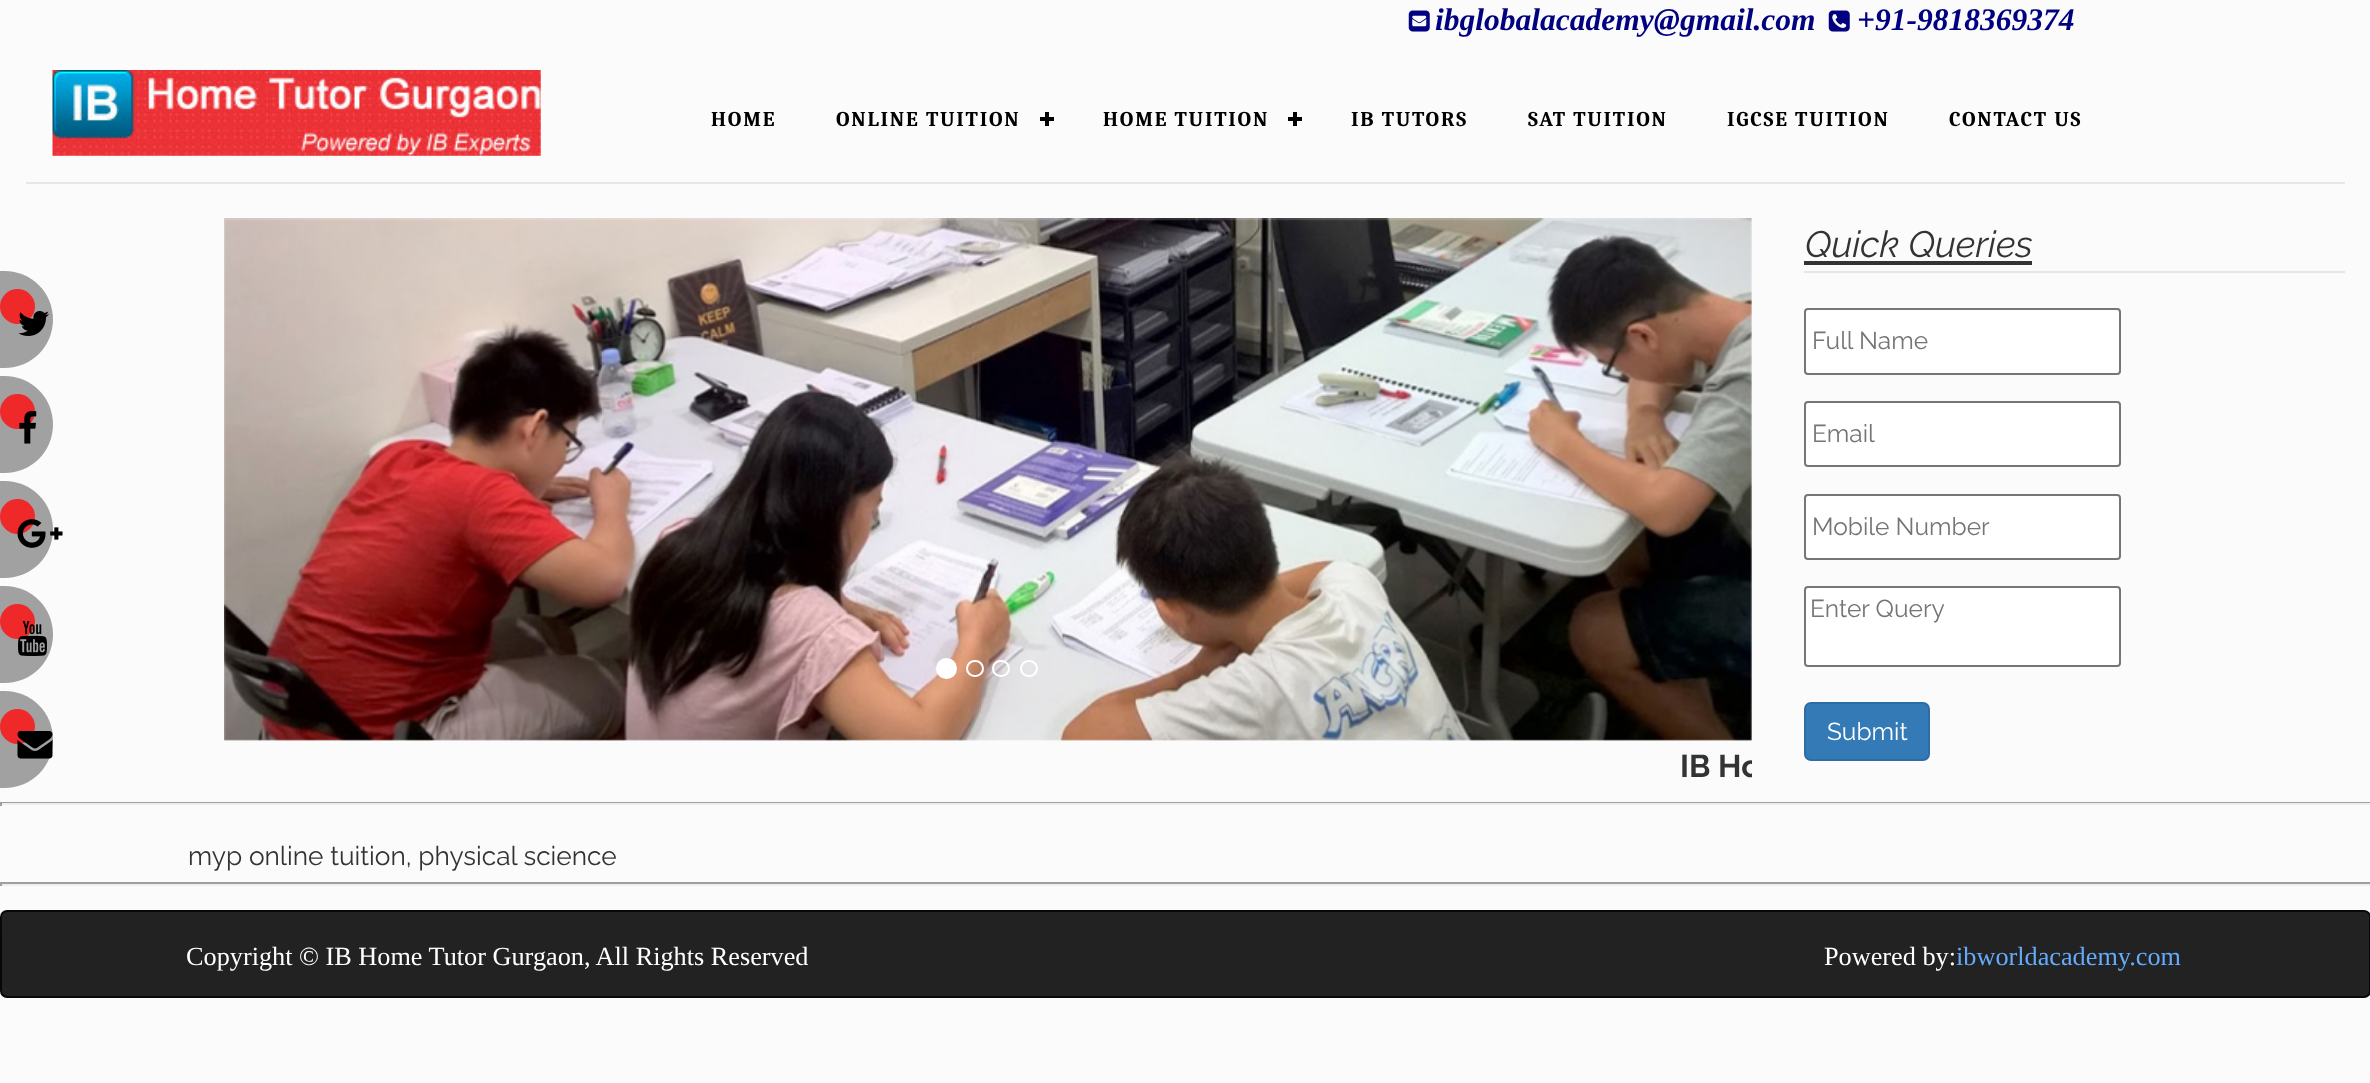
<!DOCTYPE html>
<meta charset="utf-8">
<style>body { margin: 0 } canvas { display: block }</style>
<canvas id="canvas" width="2370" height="1083"></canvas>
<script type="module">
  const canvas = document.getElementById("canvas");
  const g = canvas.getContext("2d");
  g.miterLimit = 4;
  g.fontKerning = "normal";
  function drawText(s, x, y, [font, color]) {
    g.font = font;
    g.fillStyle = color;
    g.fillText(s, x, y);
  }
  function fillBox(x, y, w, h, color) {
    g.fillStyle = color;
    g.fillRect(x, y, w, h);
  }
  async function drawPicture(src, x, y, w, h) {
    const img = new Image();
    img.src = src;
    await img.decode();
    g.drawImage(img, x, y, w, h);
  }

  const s1 = ["italic bold 31.5px Liberation Serif", "#000080"];
  const s2 = ["bold 21px Caladea", "#000000"];
  const s3 = ["italic 36.75px Raleway", "#333333"];
  const s4 = ["24.5px Raleway", "#757575"];
  const s5 = ["24.5px Raleway", "#FFFFFF"];
  const s6 = ["bold 31.5px Raleway", "#333333"];
  const s7 = ["26.25px Raleway", "#333333"];
  const s8 = ["26.25px Liberation Serif", "#FFFFFF"];
  const s9 = ["26.25px Liberation Serif", "#64ABFB"];

  fillBox(0, 0, 2370, 1083, "#FBFBFB");
  fillBox(26, 182, 2319, 2, "#E7E7E7");
  await drawPicture("pic1.png", 52, 70, 489, 86);
  await drawPicture("pic2.png", 1408, 10, 22, 22);
  drawText("ibglobalacademy@gmail.com", 1435, 30, s1);
  await drawPicture("pic3.png", 1828, 10, 22, 22);
  drawText("+91-9818369374", 1857, 30, s1);
  g.letterSpacing = "1.75px";
  drawText("HOME", 711, 126, s2);
  drawText("ONLINE TUITION", 836, 126, s2);
  fillBox(1045, 112, 4, 14, "#000000");
  fillBox(1040, 117, 14, 4, "#000000");
  drawText("HOME TUITION", 1103, 126, s2);
  fillBox(1293, 112, 4, 14, "#000000");
  fillBox(1288, 117, 14, 4, "#000000");
  drawText("IB TUTORS", 1351, 126, s2);
  drawText("SAT TUITION", 1528, 126, s2);
  drawText("IGCSE TUITION", 1727, 126, s2);
  drawText("CONTACT US", 1949, 126, s2);
  g.fillStyle = "#A1A1A1";
  g.beginPath();
  g.moveTo(-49, 271);
  g.lineTo(4.5, 271);
  g.bezierCurveTo(31.5, 271, 53, 292.5, 53, 319.5);
  g.bezierCurveTo(53, 346.5, 31.5, 368, 4.5, 368);
  g.lineTo(-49, 368);
  g.closePath();
  g.fill();
  g.fillStyle = "#EF2929";
  g.beginPath();
  g.arc(17.5, 306.5, 17.5, 0, Math.PI * 2);
  g.fill();
  await drawPicture("pic4.png", 18, 311, 31, 25);
  g.fillStyle = "#A1A1A1";
  g.beginPath();
  g.moveTo(-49, 376);
  g.lineTo(4.5, 376);
  g.bezierCurveTo(31.5, 376, 53, 397.5, 53, 424.5);
  g.bezierCurveTo(53, 451.5, 31.5, 473, 4.5, 473);
  g.lineTo(-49, 473);
  g.closePath();
  g.fill();
  g.fillStyle = "#EF2929";
  g.beginPath();
  g.arc(17.5, 411.5, 17.5, 0, Math.PI * 2);
  g.fill();
  await drawPicture("pic5.png", 19, 411, 18, 33);
  g.fillStyle = "#A1A1A1";
  g.beginPath();
  g.moveTo(-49, 481);
  g.lineTo(4.5, 481);
  g.bezierCurveTo(31.5, 481, 53, 502.5, 53, 529.5);
  g.bezierCurveTo(53, 556.5, 31.5, 578, 4.5, 578);
  g.lineTo(-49, 578);
  g.closePath();
  g.fill();
  g.fillStyle = "#EF2929";
  g.beginPath();
  g.arc(17.5, 516.5, 17.5, 0, Math.PI * 2);
  g.fill();
  await drawPicture("pic6.png", 17, 519, 46, 29);
  g.fillStyle = "#A1A1A1";
  g.beginPath();
  g.moveTo(-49, 586);
  g.lineTo(4.5, 586);
  g.bezierCurveTo(31.5, 586, 53, 607.5, 53, 634.5);
  g.bezierCurveTo(53, 661.5, 31.5, 683, 4.5, 683);
  g.lineTo(-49, 683);
  g.closePath();
  g.fill();
  g.fillStyle = "#EF2929";
  g.beginPath();
  g.arc(17.5, 621.5, 17.5, 0, Math.PI * 2);
  g.fill();
  await drawPicture("pic7.png", 18, 621, 29, 35);
  g.fillStyle = "#A1A1A1";
  g.beginPath();
  g.moveTo(-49, 691);
  g.lineTo(4.5, 691);
  g.bezierCurveTo(31.5, 691, 53, 712.5, 53, 739.5);
  g.bezierCurveTo(53, 766.5, 31.5, 788, 4.5, 788);
  g.lineTo(-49, 788);
  g.closePath();
  g.fill();
  g.fillStyle = "#EF2929";
  g.beginPath();
  g.arc(17.5, 726.5, 17.5, 0, Math.PI * 2);
  g.fill();
  await drawPicture("pic8.png", 17, 731, 36, 28);
  fillBox(1804, 271, 541, 2, "#E5E5E5");
  g.letterSpacing = "0px";
  drawText("Quick Queries", 1805, 257, s3);
  fillBox(1804, 261, 228, 4, "#333333");
  g.fillStyle = "#FFFFFF";
  g.beginPath();
  g.roundRect(1805, 309, 315, 65, 3);
  g.fill();
  g.strokeStyle = "#767676";
  g.lineWidth = 2;
  g.stroke();
  drawText("Full Name", 1812, 349, s4);
  g.fillStyle = "#FFFFFF";
  g.beginPath();
  g.roundRect(1805, 402, 315, 64, 3);
  g.fill();
  g.stroke();
  drawText("Email", 1812, 442, s4);
  g.fillStyle = "#FFFFFF";
  g.beginPath();
  g.roundRect(1805, 495, 315, 64, 3);
  g.fill();
  g.stroke();
  drawText("Mobile Number", 1812, 535, s4);
  g.fillStyle = "#FFFFFF";
  g.beginPath();
  g.roundRect(1805, 587, 315, 79, 3);
  g.fill();
  g.stroke();
  drawText("Enter Query", 1810, 617, s4);
  g.fillStyle = "#337AB7";
  g.beginPath();
  g.roundRect(1805, 703, 124, 57, 6);
  g.fill();
  g.strokeStyle = "#2E6DA4";
  g.stroke();
  drawText("Submit", 1827, 740, s5);
  await drawPicture("pic9.png", 224, 218, 1528, 523);
  g.beginPath();
  g.arc(946.5, 668.5, 9.5, 0, Math.PI * 2);
  g.fill();
  g.strokeStyle = "#FFFFFF";
  g.stroke();
  g.beginPath();
  g.roundRect(967, 661, 16, 15, 7.5);
  g.stroke();
  g.beginPath();
  g.roundRect(993, 661, 16, 15, 7.5);
  g.stroke();
  g.beginPath();
  g.roundRect(1021, 661, 16, 15, 7.5);
  g.stroke();
  g.save();
  g.beginPath();
  g.rect(224, 740, 1528, 53);
  g.clip();
  drawText("IB Ho", 1680, 777, s6);
  g.restore();
  fillBox(0, 802, 2370, 1, "#9F9F9F");
  fillBox(0, 803, 2370, 2, "#EEEEEE");
  fillBox(0, 802, 2, 4, "#9F9F9F");
  drawText("myp online tuition, physical science", 188, 865, s7);
  fillBox(0, 882, 2370, 2, "#9F9F9F");
  fillBox(0, 884, 2370, 2, "#EEEEEE");
  fillBox(0, 882, 2, 4, "#9F9F9F");
  g.fillStyle = "#222222";
  g.beginPath();
  g.roundRect(1, 911, 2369, 86, 6);
  g.fill();
  g.strokeStyle = "#080808";
  g.stroke();
  drawText("Copyright © IB Home Tutor Gurgaon, All Rights Reserved", 186, 965, s8);
  drawText("Powered by:", 1824, 965, s8);
  drawText("ibworldacademy.com", 1956, 965, s9);
</script>
